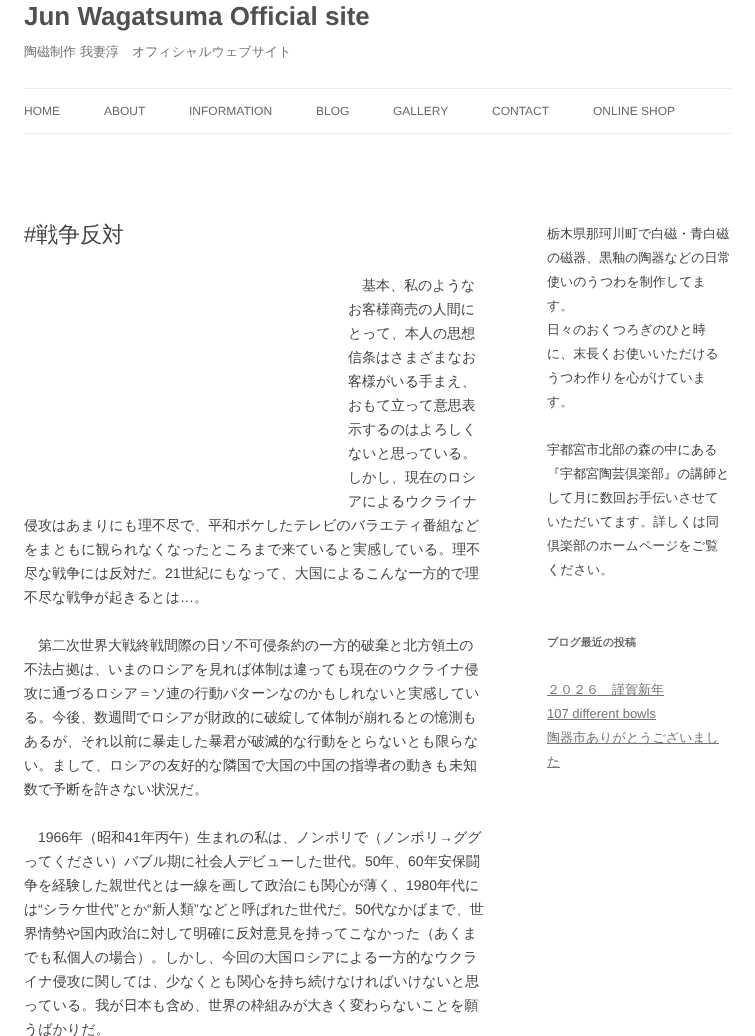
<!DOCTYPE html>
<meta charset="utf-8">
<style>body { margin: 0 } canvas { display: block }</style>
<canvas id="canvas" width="755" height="1036"></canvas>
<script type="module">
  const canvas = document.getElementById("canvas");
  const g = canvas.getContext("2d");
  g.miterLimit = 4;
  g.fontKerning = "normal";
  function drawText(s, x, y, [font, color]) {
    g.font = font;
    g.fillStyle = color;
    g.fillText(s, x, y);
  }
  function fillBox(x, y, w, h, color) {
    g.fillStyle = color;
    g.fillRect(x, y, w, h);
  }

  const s1 = ["bold 26px Liberation Sans", "#515151"];
  const s2 = ["500 13px WenQuanYi Zen Hei", "#757575"];
  const s3 = ["12px Liberation Sans", "#6A6A6A"];
  const s4 = ["22px Liberation Sans", "#444444"];
  const s5 = ["500 22px WenQuanYi Zen Hei", "#444444"];
  const s6 = ["500 14px WenQuanYi Zen Hei", "#444444"];
  const s7 = ["14px Liberation Sans", "#444444"];
  const s8 = ["500 13px WenQuanYi Zen Hei", "#444444"];
  const s9 = ["bold 11px WenQuanYi Zen Hei", "#636363"];
  const s10 = ["13px Liberation Sans", "#757575"];

  fillBox(0, 0, 755, 1036, "#FFFFFF");
  drawText("Jun Wagatsuma Official site", 24, 25, s1);
  drawText("陶磁制作 我妻淳　オフィシャルウェブサイト", 24, 56, s2);
  fillBox(24, 88, 707, 1, "#EDEDED");
  fillBox(24, 133, 707, 1, "#EDEDED");
  drawText("HOME", 24, 115, s3);
  drawText("ABOUT", 104, 115, s3);
  drawText("INFORMATION", 189, 115, s3);
  drawText("BLOG", 316, 115, s3);
  drawText("GALLERY", 393, 115, s3);
  drawText("CONTACT", 492, 115, s3);
  drawText("ONLINE SHOP", 593, 115, s3);
  drawText("#", 24, 242, s4);
  drawText("戦争反対", 36, 242, s5);
  drawText("基本、私のような", 362, 290, s6);
  drawText("お客様商売の人間に", 348, 314, s6);
  drawText("とって、本人の思想", 348, 338, s6);
  drawText("信条はさまざまなお", 348, 362, s6);
  drawText("客様がいる手まえ、", 348, 386, s6);
  drawText("おもて立って意思表", 348, 410, s6);
  drawText("示するのはよろしく", 348, 434, s6);
  drawText("ないと思っている。", 348, 458, s6);
  drawText("しかし、現在のロシ", 348, 482, s6);
  drawText("アによるウクライナ", 348, 506, s6);
  drawText("侵攻はあまりにも理不尽で、平和ボケしたテレビのバラエティ番組など", 24, 530, s6);
  drawText("をまともに観られなくなったところまで来ていると実感している。理不", 24, 554, s6);
  drawText("尽な戦争には反対だ。", 24, 578, s6);
  drawText("21", 165, 578, s7);
  drawText("世紀にもなって、大国によるこんな一方的で理", 181, 578, s6);
  drawText("不尽な戦争が起きるとは", 24, 602, s6);
  drawText("…", 180, 602, s7);
  drawText("。", 194, 602, s6);
  drawText("第二次世界大戦終戦間際の日ソ不可侵条約の一方的破棄と北方領土の", 38, 650, s6);
  drawText("不法占拠は、いまのロシアを見れば体制は違っても現在のウクライナ侵", 24, 674, s6);
  drawText("攻に通づるロシア＝ソ連の行動パターンなのかもしれないと実感してい", 24, 698, s6);
  drawText("る。今後、数週間でロシアが財政的に破綻して体制が崩れるとの憶測も", 24, 722, s6);
  drawText("あるが、それ以前に暴走した暴君が破滅的な行動をとらないとも限らな", 24, 746, s6);
  drawText("い。まして、ロシアの友好的な隣国で大国の中国の指導者の動きも未知", 24, 770, s6);
  drawText("数で予断を許さない状況だ。", 24, 794, s6);
  drawText("1966", 38, 842, s7);
  drawText("年（昭和", 69, 842, s6);
  drawText("41", 125, 842, s7);
  drawText("年丙午）生まれの私は、ノンポリで（ノンポリ", 141, 842, s6);
  drawText("→", 439, 842, s7);
  drawText("ググ", 453, 842, s6);
  drawText("ってください）バブル期に社会人デビューした世代。", 24, 866, s6);
  drawText("50", 365, 866, s7);
  drawText("年、", 380, 866, s6);
  drawText("60", 408, 866, s7);
  drawText("年安保闘", 424, 866, s6);
  drawText("争を経験した親世代とは一線を画して政治にも関心が薄く、", 24, 890, s6);
  drawText("1980", 406, 890, s7);
  drawText("年代に", 437, 890, s6);
  drawText("は", 24, 914, s6);
  drawText("“", 38, 914, s7);
  drawText("シラケ世代", 43, 914, s6);
  drawText("”", 114, 914, s7);
  drawText("とか", 119, 914, s6);
  drawText("“", 147, 914, s7);
  drawText("新人類", 152, 914, s6);
  drawText("”", 194, 914, s7);
  drawText("などと呼ばれた世代だ。", 199, 914, s6);
  drawText("50", 355, 914, s7);
  drawText("代なかばまで、世", 370, 914, s6);
  drawText("界情勢や国内政治に対して明確に反対意見を持ってこなかった（あくま", 24, 938, s6);
  drawText("でも私個人の場合）。しかし、今回の大国ロシアによる一方的なウクラ", 24, 962, s6);
  drawText("イナ侵攻に関しては、少なくとも関心を持ち続けなければいけないと思", 24, 986, s6);
  drawText("っている。我が日本も含め、世界の枠組みが大きく変わらないことを願", 24, 1010, s6);
  drawText("うばかりだ。", 24, 1034, s6);
  drawText("栃木県那珂川町で白磁・青白磁", 547, 238, s8);
  drawText("の磁器、黒釉の陶器などの日常", 547, 262, s8);
  drawText("使いのうつわを制作してま", 547, 286, s8);
  drawText("す。", 547, 310, s8);
  drawText("日々のおくつろぎのひと時", 547, 334, s8);
  drawText("に、末長くお使いいただける", 547, 358, s8);
  drawText("うつわ作りを心がけていま", 547, 382, s8);
  drawText("す。", 547, 406, s8);
  drawText("宇都宮市北部の森の中にある", 547, 454, s8);
  drawText("『宇都宮陶芸倶楽部』の講師と", 547, 478, s8);
  drawText("して月に数回お手伝いさせて", 547, 502, s8);
  drawText("いただいてます。詳しくは同", 547, 526, s8);
  drawText("倶楽部のホームページをご覧", 547, 550, s8);
  drawText("ください。", 547, 574, s8);
  drawText("ブログ最近の投稿", 547, 646, s9);
  fillBox(547, 695, 117, 1, "#757575");
  drawText("２０２６　謹賀新年", 547, 694, s2);
  drawText("107 different bowls", 547, 718, s10);
  fillBox(547, 719, 109, 1, "#757575");
  fillBox(547, 743, 172, 1, "#757575");
  drawText("陶器市ありがとうございまし", 547, 742, s2);
  fillBox(547, 767, 13, 1, "#757575");
  drawText("た", 547, 766, s2);
</script>
